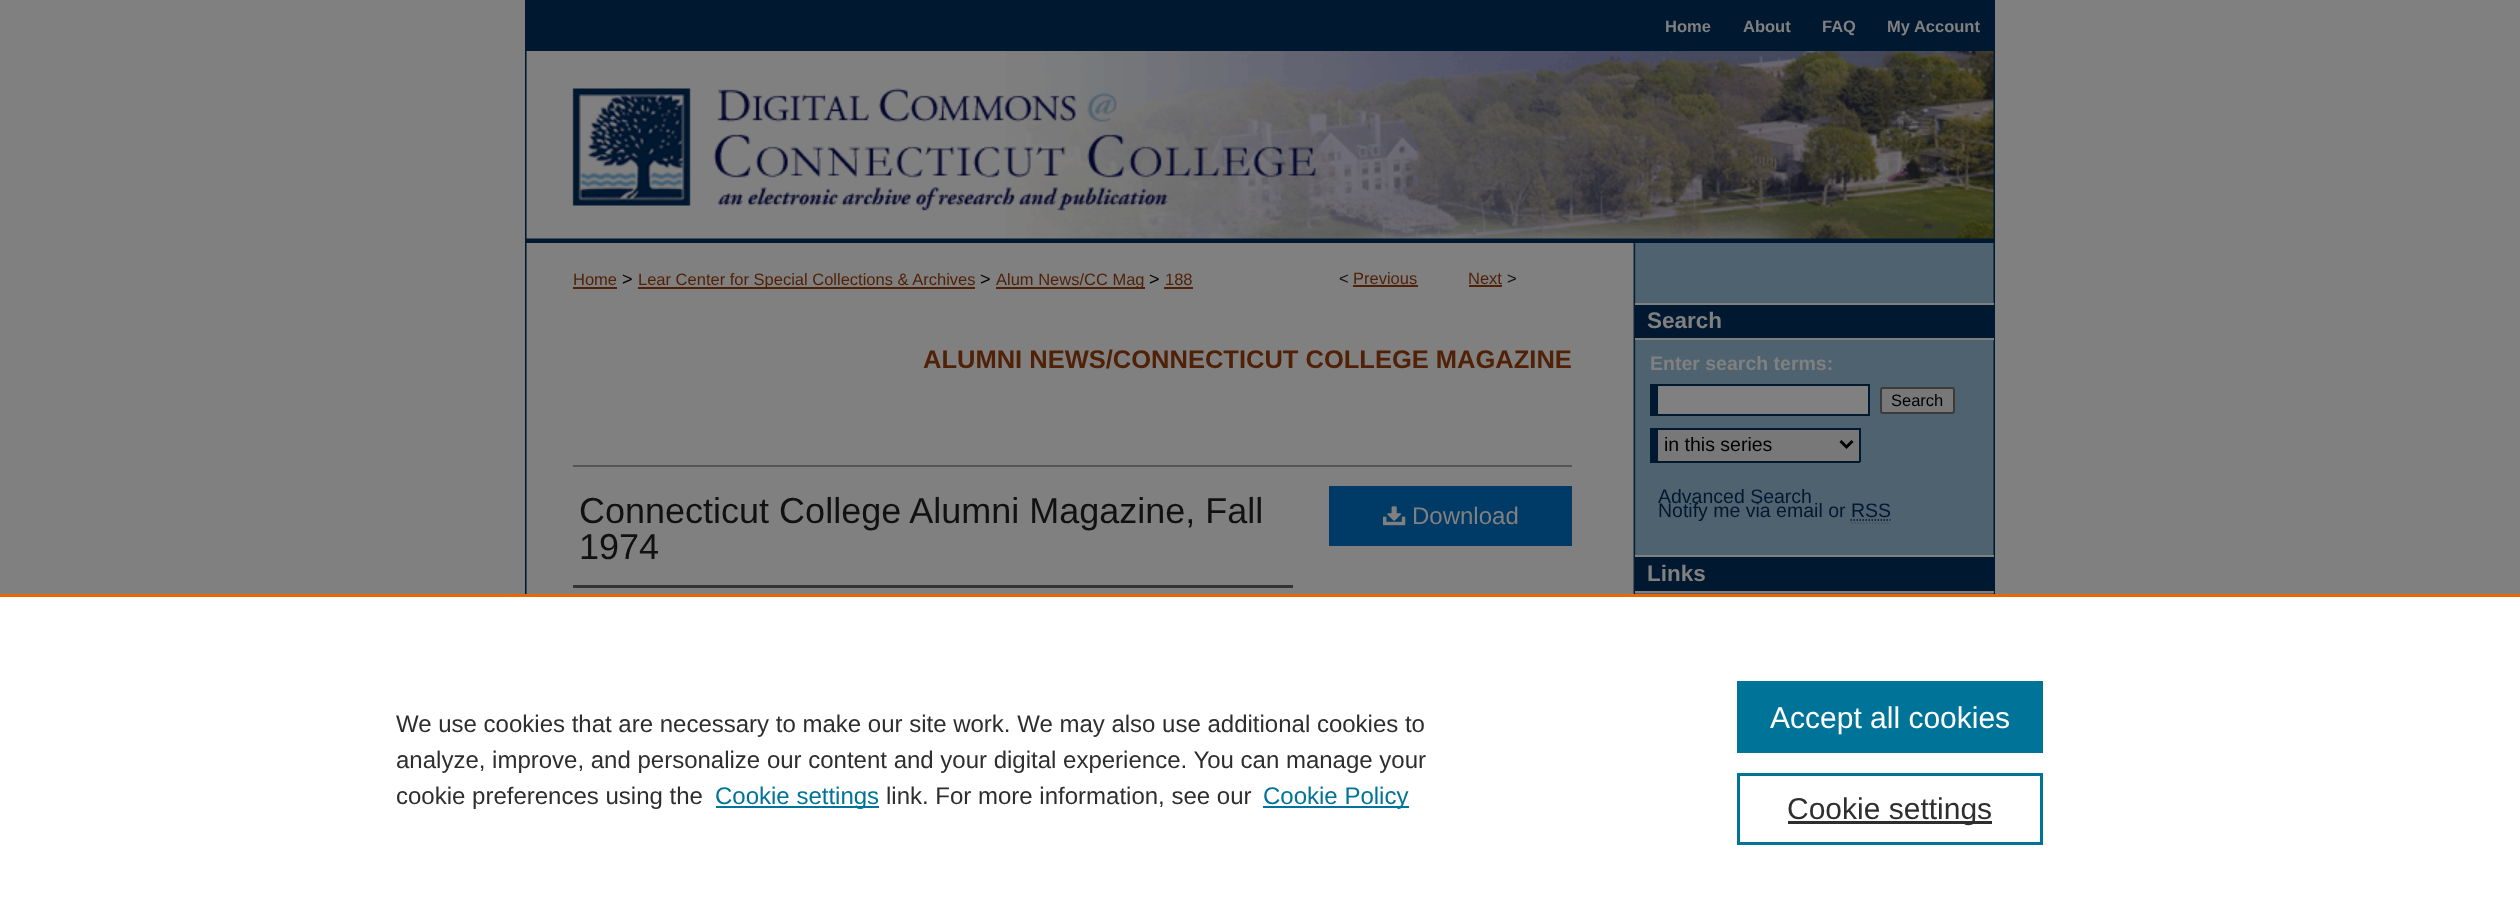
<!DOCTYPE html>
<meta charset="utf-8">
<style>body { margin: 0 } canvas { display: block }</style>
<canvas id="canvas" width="2520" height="924"></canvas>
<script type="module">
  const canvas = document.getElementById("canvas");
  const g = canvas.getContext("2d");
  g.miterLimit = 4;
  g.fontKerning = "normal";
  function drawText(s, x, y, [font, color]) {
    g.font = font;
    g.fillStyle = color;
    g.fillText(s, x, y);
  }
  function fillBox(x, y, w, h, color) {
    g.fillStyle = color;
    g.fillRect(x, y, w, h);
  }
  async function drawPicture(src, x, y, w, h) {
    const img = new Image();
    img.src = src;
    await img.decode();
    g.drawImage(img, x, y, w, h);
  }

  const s1 = ["bold 16.5px Liberation Sans", "#808080"];
  const s2 = ["16.5px Liberation Sans", "#502107"];
  const s3 = ["18px Liberation Sans", "#000000"];
  const s4 = ["16.5px Liberation Sans", "#111111"];
  const s5 = ["bold 25.5px Liberation Sans", "#502107"];
  const s6 = ["36px Liberation Sans", "#111111"];
  const s7 = ["24px Liberation Sans", "#808080"];
  const s8 = ["bold 22.5px Liberation Sans", "#808080"];
  const s9 = ["bold 19.5px Liberation Sans", "#808080"];
  const s10 = ["16.5px Liberation Sans", "#000000"];
  const s11 = ["19.5px Liberation Sans", "#000000"];
  const s12 = ["19.5px Liberation Sans", "#001830"];
  const s13 = ["24px Liberation Sans", "#2E2E2E"];
  const s14 = ["24px Liberation Sans", "#007398"];
  const s15 = ["30px Liberation Sans", "#FFFFFF"];
  const s16 = ["30px Liberation Sans", "#2E2E2E"];

  fillBox(0, 0, 2520, 924, "#808080");
  fillBox(525, 0, 1470, 51, "#001830");
  drawText("Home", 1665, 32, s1);
  drawText("About", 1743, 32, s1);
  drawText("FAQ", 1822, 32, s1);
  drawText("My Account", 1887, 32, s1);
  await drawPicture("pic1.png", 525, 51, 1470, 192);
  await drawPicture("pic2.png", 525, 243, 1470, 351);
  drawText("Home", 573, 285, s2);
  fillBox(573, 287, 44, 2, "#502107");
  drawText(">", 622, 285, s3);
  fillBox(638, 287, 337, 2, "#502107");
  drawText("Lear Center for Special Collections & Archives", 638, 285, s2);
  drawText(">", 980, 285, s3);
  fillBox(996, 287, 149, 2, "#502107");
  drawText("Alum News/CC Mag", 996, 285, s2);
  drawText(">", 1149, 285, s3);
  drawText("188", 1165, 285, s2);
  fillBox(1164, 287, 29, 2, "#502107");
  drawText("<", 1339, 284, s4);
  drawText("Previous", 1353, 284, s2);
  fillBox(1353, 285, 65, 2, "#502107");
  drawText("Next", 1468, 284, s2);
  fillBox(1469, 285, 33, 2, "#502107");
  drawText(">", 1507, 284, s4);
  drawText("ALUMNI NEWS/CONNECTICUT COLLEGE MAGAZINE", 923, 368, s5);
  fillBox(573, 465, 999, 2, "#555555");
  drawText("Connecticut College Alumni Magazine, Fall", 579, 523, s6);
  drawText("1974", 579, 559, s6);
  fillBox(573, 585, 720, 3, "#333333");
  fillBox(1329, 486, 243, 60, "#003A66");
  await drawPicture("pic3.png", 1383, 506, 23, 20);
  drawText("Download", 1412, 524, s7);
  fillBox(1635, 305, 359, 33, "#001830");
  fillBox(1635, 303, 359, 2, "#808080");
  fillBox(1635, 338, 359, 2, "#808080");
  drawText("Search", 1647, 328, s8);
  drawText("Enter search terms:", 1650, 370, s9);
  fillBox(1658, 386, 210, 28, "#808080");
  fillBox(1650, 384, 219, 2, "#001830");
  fillBox(1868, 384, 2, 32, "#001830");
  fillBox(1650, 414, 219, 2, "#001830");
  fillBox(1650, 384, 8, 32, "#001830");
  g.fillStyle = "#787878";
  g.beginPath();
  g.roundRect(1881, 388, 73, 25, 2);
  g.fill();
  g.strokeStyle = "#3B3B3B";
  g.lineWidth = 2;
  g.stroke();
  drawText("Search", 1891, 406, s10);
  fillBox(1658, 430, 201, 31, "#787878");
  fillBox(1650, 428, 210, 2, "#001830");
  fillBox(1859, 428, 2, 34, "#001830");
  fillBox(1650, 461, 210, 2, "#001830");
  fillBox(1650, 428, 8, 34, "#001830");
  g.beginPath();
  g.moveTo(1840.5, 441);
  g.lineTo(1846.5, 447);
  g.lineTo(1852.5, 441);
  g.strokeStyle = "#000000";
  g.lineWidth = 3;
  g.stroke();
  drawText("in this series", 1664, 451, s11);
  drawText("Advanced Search", 1658, 503, s12);
  drawText("Notify me via email or RSS", 1658, 517, s12);
  g.beginPath();
  g.moveTo(1850.5, 520);
  g.lineTo(1890.5, 520);
  g.strokeStyle = "#001830";
  g.lineWidth = 1.5;
  g.setLineDash([1.5, 1.5]);
  g.stroke();
  g.beginPath();
  g.moveTo(1851, 523);
  g.lineTo(1890, 523);
  g.strokeStyle = "#4D4D4D";
  g.stroke();
  fillBox(1635, 557, 359, 34, "#001830");
  fillBox(1635, 555, 359, 2, "#808080");
  fillBox(1635, 591, 359, 2, "#808080");
  drawText("Links", 1647, 581, s8);
  fillBox(0, 597, 2520, 327, "#FFFFFF");
  fillBox(0, 594, 2520, 3, "#EB6500");
  drawText("We use cookies that are necessary to make our site work. We may also use additional cookies to", 396, 732, s13);
  drawText("analyze, improve, and personalize our content and your digital experience. You can manage your", 396, 768, s13);
  drawText("cookie preferences using the", 396, 804, s13);
  fillBox(716, 806, 163, 2, "#007398");
  drawText("Cookie settings", 715, 804, s14);
  drawText("link. For more information, see our", 886, 804, s13);
  fillBox(1263, 806, 146, 2, "#007398");
  drawText("Cookie Policy", 1263, 804, s14);
  fillBox(1737, 681, 306, 72, "#007398");
  drawText("Accept all cookies", 1770, 728, s15);
  g.strokeStyle = "#007398";
  g.lineWidth = 3;
  g.setLineDash([]);
  g.strokeRect(1738.5, 774.5, 303, 69);
  fillBox(1788, 821, 204, 3, "#2E2E2E");
  drawText("Cookie settings", 1787, 819, s16);
</script>
